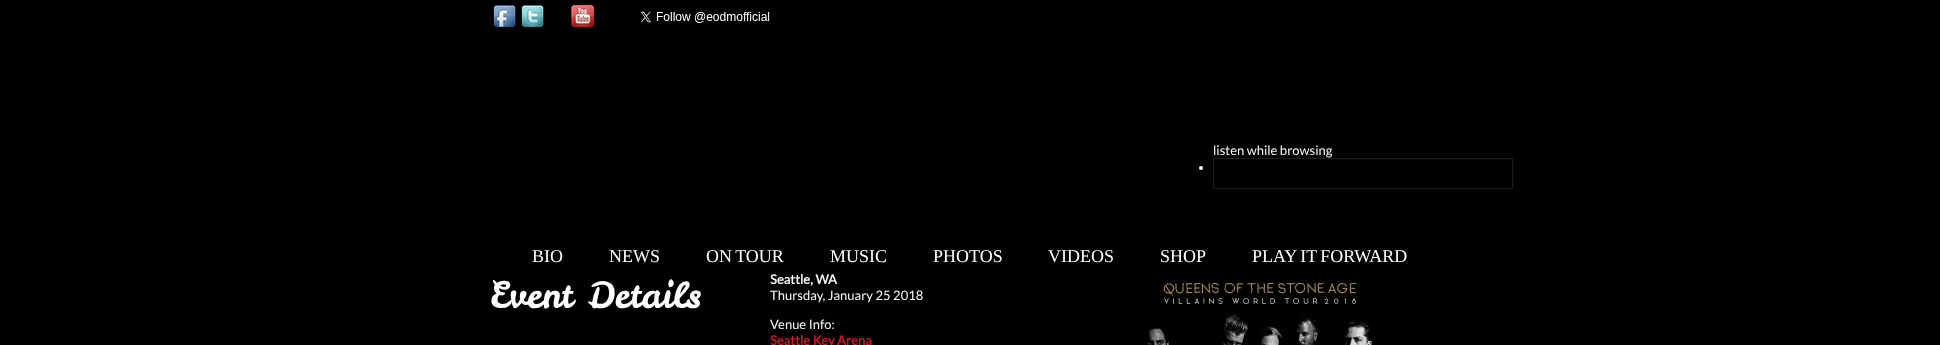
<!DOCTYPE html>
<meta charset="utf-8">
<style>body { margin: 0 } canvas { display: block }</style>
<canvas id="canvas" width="1940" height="345"></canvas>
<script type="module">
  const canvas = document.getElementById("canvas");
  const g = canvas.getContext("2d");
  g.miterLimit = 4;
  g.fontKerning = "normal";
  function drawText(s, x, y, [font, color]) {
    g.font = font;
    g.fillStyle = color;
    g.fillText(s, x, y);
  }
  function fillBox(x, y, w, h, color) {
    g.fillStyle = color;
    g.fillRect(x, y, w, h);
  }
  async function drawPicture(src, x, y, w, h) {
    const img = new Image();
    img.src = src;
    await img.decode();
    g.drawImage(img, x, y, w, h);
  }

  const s1 = ["13px Lato", "#F9F9F9"];
  const s2 = ["18px Liberation Serif", "#FFFFFF"];
  const s3 = ["36px Leckerli One", "#FFFFFF"];
  const s4 = ["bold 13px Lato", "#F9F9F9"];
  const s5 = ["bold 13px Lato", "#CF1A21"];

  fillBox(0, 0, 1940, 345, "#000000");
  await drawPicture("pic1.png", 493, 5, 23, 23);
  await drawPicture("pic2.png", 521, 5, 23, 23);
  await drawPicture("pic3.png", 571, 4, 24, 24);
  await drawPicture("pic4.png", 640, 11, 130, 12);
  drawText("listen while browsing", 1213, 155, s1);
  g.strokeStyle = "#1E1E1E";
  g.strokeRect(1213.5, 158.5, 299, 30);
  g.beginPath();
  g.arc(1201, 168, 2, 0, Math.PI * 2);
  g.fill();
  drawText("BIO", 532, 262, s2);
  drawText("NEWS", 609, 262, s2);
  g.wordSpacing = "-1px";
  drawText("ON TOUR", 706, 262, s2);
  g.wordSpacing = "0px";
  drawText("MUSIC", 830, 262, s2);
  drawText("PHOTOS", 933, 262, s2);
  drawText("VIDEOS", 1048, 262, s2);
  drawText("SHOP", 1160, 262, s2);
  g.wordSpacing = "-1px";
  drawText("PLAY IT FORWARD", 1252, 262, s2);
  g.wordSpacing = "0px";
  drawText("Event Details", 490, 308, s3);
  drawText("Seattle, WA", 770, 284, s4);
  drawText("Thursday, January 25 2018", 770, 300, s1);
  drawText("Venue Info:", 770, 329, s1);
  drawText("Seattle Key Arena", 770, 345, s5);
  await drawPicture("pic5.png", 1147, 282, 225, 63);
</script>
